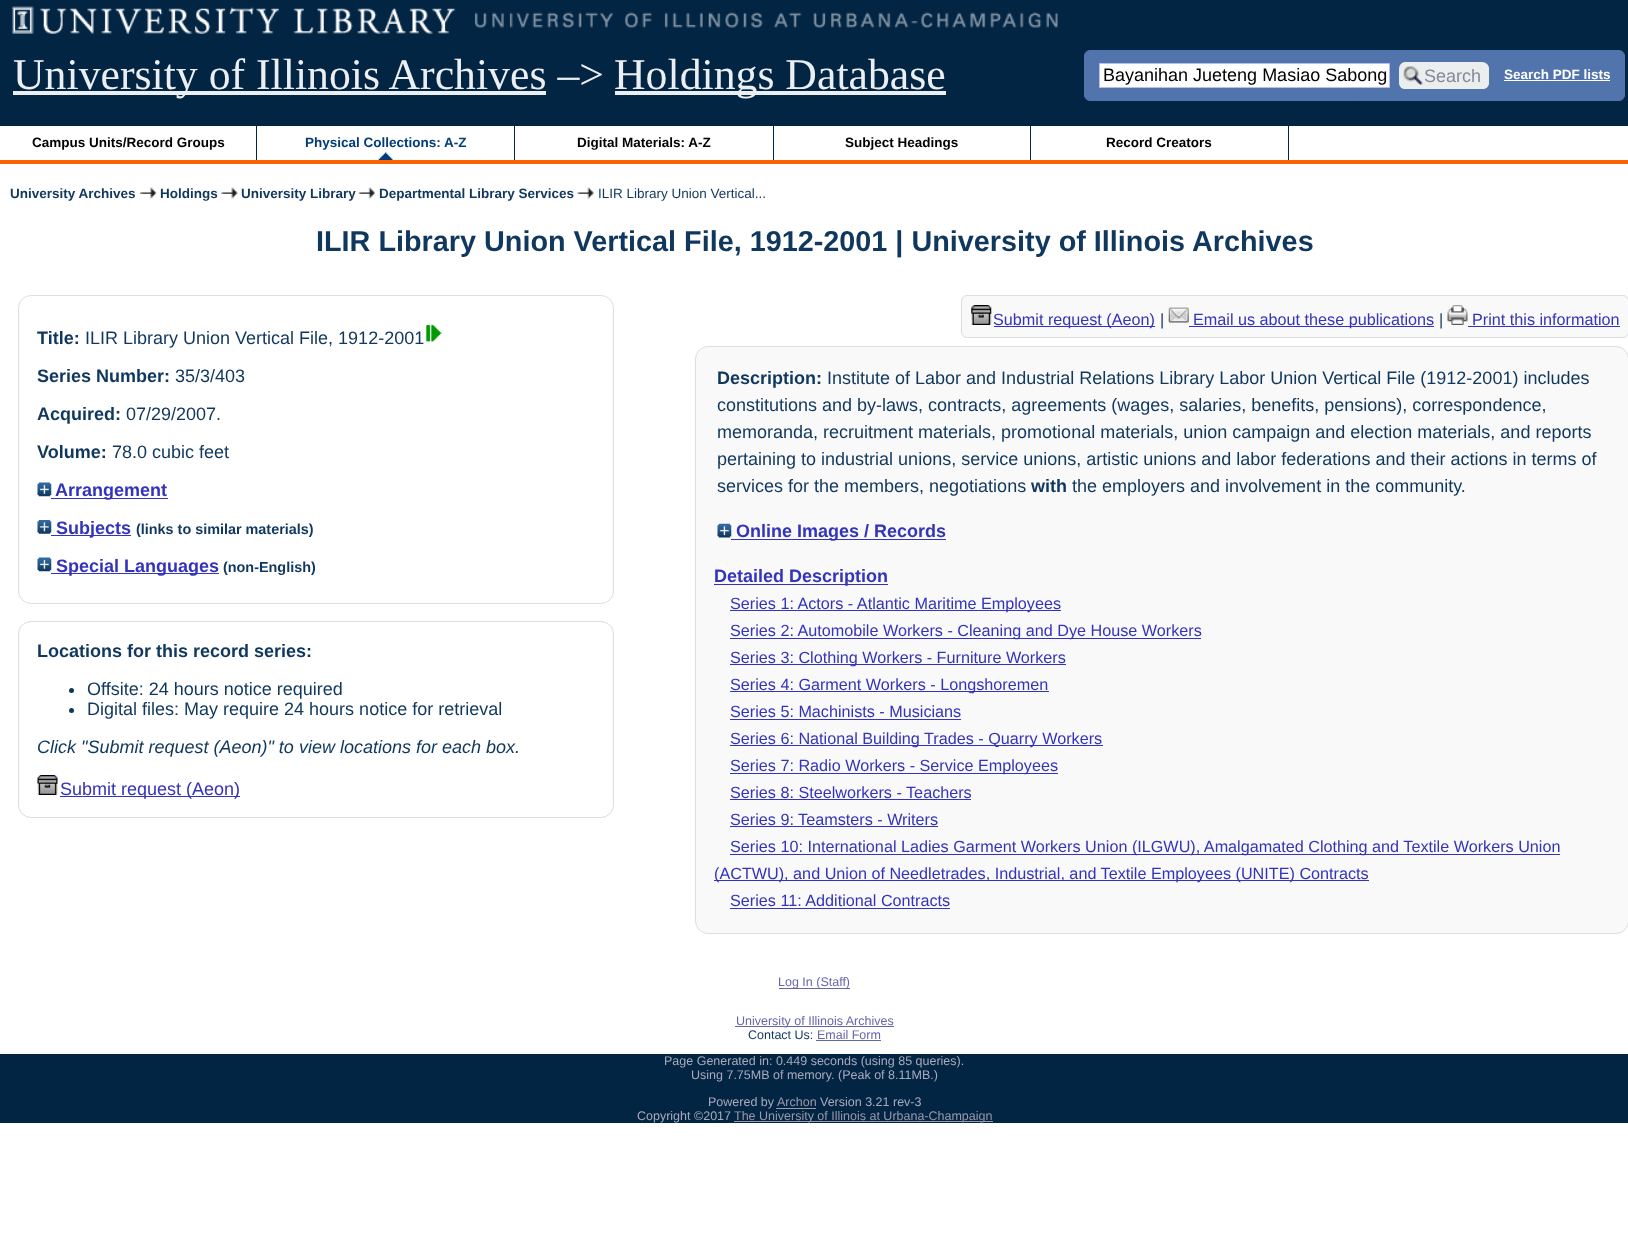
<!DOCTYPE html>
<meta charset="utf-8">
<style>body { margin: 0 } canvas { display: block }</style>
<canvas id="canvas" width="1628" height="1240"></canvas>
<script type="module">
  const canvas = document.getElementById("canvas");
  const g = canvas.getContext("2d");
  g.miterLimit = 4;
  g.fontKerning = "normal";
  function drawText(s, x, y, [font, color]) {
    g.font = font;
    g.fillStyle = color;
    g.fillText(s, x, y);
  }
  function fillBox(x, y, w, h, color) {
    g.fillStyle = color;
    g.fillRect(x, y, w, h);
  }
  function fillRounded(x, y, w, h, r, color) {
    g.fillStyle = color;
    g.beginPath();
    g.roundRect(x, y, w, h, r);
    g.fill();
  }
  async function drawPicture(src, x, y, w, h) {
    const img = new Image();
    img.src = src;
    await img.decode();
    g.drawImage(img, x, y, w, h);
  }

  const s1 = ["43.75px Liberation Serif", "#ECEFF1"];
  const s2 = ["18px Liberation Sans", "#000000"];
  const s3 = ["18px Liberation Sans", "#888899"];
  const s4 = ["bold 13.5px Liberation Sans", "#FFFFFF"];
  const s5 = ["bold 13.5px Liberation Sans", "#000000"];
  const s6 = ["bold 13.5px Liberation Sans", "#003C7B"];
  const s7 = ["bold 13.5px Liberation Sans", "#10375D"];
  const s8 = ["13.5px Liberation Sans", "#10375D"];
  const s9 = ["bold 28.8px Liberation Sans", "#10375D"];
  const s10 = ["bold 18px Liberation Sans", "#10375D"];
  const s11 = ["18px Liberation Sans", "#10375D"];
  const s12 = ["bold 18px Liberation Sans", "#3333BB"];
  const s13 = ["bold 14.4px Liberation Sans", "#10375D"];
  const s14 = ["italic 18px Liberation Sans", "#10375D"];
  const s15 = ["18px Liberation Sans", "#3333BB"];
  const s16 = ["16.2px Liberation Sans", "#3333BB"];
  const s17 = ["16.2px Liberation Sans", "#10375D"];
  const s18 = ["12.5px Liberation Sans", "#6666AA"];
  const s19 = ["12.5px Liberation Sans", "#10375D"];
  const s20 = ["12.5px Liberation Sans", "#AAAABB"];
  const s21 = ["12.5px Liberation Sans", "#9999AA"];

  fillBox(0, 0, 1628, 1240, "#FFFFFF");
  fillBox(0, 0, 1628, 126, "#022544");
  await drawPicture("pic1.png", 12, 6, 1046, 28);
  fillBox(0, 160, 1628, 4, "#FA6300");
  fillBox(13, 91, 533, 4, "#ECEFF1");
  drawText("University of Illinois Archives –>", 13, 89, s1);
  fillBox(615, 91, 331, 4, "#ECEFF1");
  drawText("Holdings Database", 614, 89, s1);
  g.fillStyle = "#5274AC";
  g.beginPath();
  g.roundRect(1084.5, 50.5, 540, 50, 5.5);
  g.fill();
  g.strokeStyle = "#5274AC";
  g.stroke();
  g.fillStyle = "#FFFFFF";
  g.beginPath();
  g.rect(1099.5, 63.5, 290, 24);
  g.fill();
  g.strokeStyle = "#BBBBEE";
  g.stroke();
  drawText("Bayanihan Jueteng Masiao Sabong", 1103, 81, s2);
  fillRounded(1399, 63, 90, 26, 6, "#EBEEEF");
  await drawPicture("pic2.png", 1403, 65, 20, 20);
  g.beginPath();
  g.moveTo(1405, 62);
  g.lineTo(1482, 62);
  g.bezierCurveTo(1486, 62, 1489, 65, 1489, 69);
  g.lineTo(1489, 82);
  g.bezierCurveTo(1489, 86, 1486, 89, 1482, 89);
  g.lineTo(1405, 89);
  g.bezierCurveTo(1402, 89, 1399, 86, 1399, 82);
  g.lineTo(1399, 69);
  g.bezierCurveTo(1399, 65, 1402, 62, 1405, 62);
  g.closePath();
  g.moveTo(1405, 64);
  g.lineTo(1482, 64);
  g.bezierCurveTo(1485, 64, 1488, 66, 1488, 69);
  g.lineTo(1488, 82);
  g.bezierCurveTo(1488, 85, 1485, 88, 1482, 88);
  g.lineTo(1405, 88);
  g.bezierCurveTo(1402, 88, 1399, 85, 1399, 82);
  g.lineTo(1399, 69);
  g.bezierCurveTo(1399, 66, 1402, 64, 1405, 64);
  g.closePath();
  g.fill("evenodd");
  drawText("Search", 1424, 82, s3);
  drawText("Search PDF lists", 1504, 79, s4);
  fillBox(1504, 80, 106, 1, "#FFFFFF");
  fillBox(256, 126, 1, 34, "#022544");
  drawText("Campus Units/Record Groups", 32, 147, s5);
  await drawPicture("pic3.png", 378, 152, 15, 8);
  fillBox(514, 126, 1, 34, "#022544");
  drawText("Physical Collections: A-Z", 305, 147, s6);
  fillBox(773, 126, 1, 34, "#022544");
  drawText("Digital Materials: A-Z", 577, 147, s5);
  fillBox(1030, 126, 1, 34, "#022544");
  drawText("Subject Headings", 845, 147, s5);
  fillBox(1288, 126, 1, 34, "#022544");
  drawText("Record Creators", 1106, 147, s5);
  drawText("University Archives", 10, 198, s7);
  await drawPicture("pic4.png", 140, 187, 17, 12);
  drawText("Holdings", 160, 198, s7);
  await drawPicture("pic5.png", 221, 187, 17, 12);
  drawText("University Library", 241, 198, s7);
  await drawPicture("pic6.png", 358, 187, 17, 12);
  drawText("Departmental Library Services", 379, 198, s7);
  await drawPicture("pic7.png", 577, 187, 17, 12);
  drawText("ILIR Library Union Vertical...", 598, 198, s8);
  drawText("ILIR Library Union Vertical File, 1912-2001 | University of Illinois Archives", 316, 251, s9);
  g.beginPath();
  g.roundRect(18.5, 295.5, 595, 308, 12.5);
  g.strokeStyle = "#DDDDDD";
  g.stroke();
  drawText("Title:", 37, 344, s10);
  drawText("ILIR Library Union Vertical File, 1912-2001", 85, 344, s11);
  await drawPicture("pic8.png", 426, 324, 16, 18);
  drawText("Series Number:", 37, 382, s10);
  drawText("35/3/403", 175, 382, s11);
  drawText("Acquired:", 37, 420, s10);
  drawText("07/29/2007.", 126, 420, s11);
  drawText("Volume:", 37, 458, s10);
  drawText("78.0 cubic feet", 112, 458, s11);
  await drawPicture("pic9.png", 37, 482, 15, 15);
  fillBox(51, 498, 117, 1, "#3333BB");
  drawText("Arrangement", 55, 496, s12);
  await drawPicture("pic10.png", 37, 520, 15, 14);
  fillBox(51, 535, 80, 1, "#3333BB");
  drawText("Subjects", 56, 534, s12);
  drawText("(links to similar materials)", 136, 534, s13);
  await drawPicture("pic9.png", 37, 557, 15, 15);
  fillBox(51, 573, 168, 1, "#3333BB");
  drawText("Special Languages", 56, 572, s12);
  drawText("(non-English)", 223, 572, s13);
  g.beginPath();
  g.roundRect(18.5, 621.5, 595, 196, 12.5);
  g.stroke();
  drawText("Locations for this record series:", 37, 657, s10);
  g.beginPath();
  g.arc(71.5, 690.5, 2.5, 0, Math.PI * 2);
  g.fill();
  drawText("Offsite: 24 hours notice required", 87, 695, s11);
  g.beginPath();
  g.arc(71.5, 710.5, 2.5, 0, Math.PI * 2);
  g.fill();
  drawText("Digital files: May require 24 hours notice for retrieval", 87, 715, s11);
  drawText("Click \"Submit request (Aeon)\" to view locations for each box.", 37, 753, s14);
  await drawPicture("pic11.png", 37, 775, 21, 20);
  fillBox(60, 796, 180, 1, "#3333BB");
  drawText("Submit request (Aeon)", 60, 795, s15);
  g.fillStyle = "#F9F9FA";
  g.beginPath();
  g.roundRect(961.5, 295.5, 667, 42, 5.5);
  g.fill();
  g.stroke();
  await drawPicture("pic12.png", 971, 305, 21, 20);
  fillBox(994, 326, 161, 1, "#3333BB");
  drawText("Submit request (Aeon)", 993, 325, s16);
  drawText("|", 1160, 325, s17);
  await drawPicture("pic13.png", 1168, 307, 21, 16);
  fillBox(1189, 326, 245, 1, "#3333BB");
  drawText("Email us about these publications", 1193, 325, s16);
  drawText("|", 1439, 325, s17);
  await drawPicture("pic14.png", 1447, 305, 21, 20);
  drawText("Print this information", 1472, 325, s16);
  fillBox(1468, 326, 152, 1, "#3333BB");
  g.fillStyle = "#F9F9FA";
  g.beginPath();
  g.roundRect(695.5, 346.5, 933, 587, 12.5);
  g.fill();
  g.stroke();
  drawText("Description:", 717, 384, s10);
  drawText("Institute of Labor and Industrial Relations Library Labor Union Vertical File (1912-2001) includes", 827, 384, s11);
  drawText("constitutions and by-laws, contracts, agreements (wages, salaries, benefits, pensions), correspondence,", 717, 411, s11);
  drawText("memoranda, recruitment materials, promotional materials, union campaign and election materials, and reports", 717, 438, s11);
  drawText("pertaining to industrial unions, service unions, artistic unions and labor federations and their actions in terms of", 717, 465, s11);
  drawText("services for the members, negotiations", 717, 492, s11);
  drawText("with", 1031, 492, s10);
  drawText("the employers and involvement in the community.", 1072, 492, s11);
  await drawPicture("pic15.png", 717, 523, 15, 15);
  fillBox(731, 539, 215, 1, "#3333BB");
  drawText("Online Images / Records", 736, 537, s12);
  fillBox(714, 584, 174, 1, "#3333BB");
  drawText("Detailed Description", 714, 582, s12);
  fillBox(730, 610, 331, 1, "#3333BB");
  drawText("Series 1: Actors - Atlantic Maritime Employees", 730, 609, s16);
  fillBox(730, 638, 471, 1, "#3333BB");
  drawText("Series 2: Automobile Workers - Cleaning and Dye House Workers", 730, 636, s16);
  fillBox(730, 664, 336, 1, "#3333BB");
  drawText("Series 3: Clothing Workers - Furniture Workers", 730, 663, s16);
  fillBox(730, 691, 319, 1, "#3333BB");
  drawText("Series 4: Garment Workers - Longshoremen", 730, 690, s16);
  drawText("Series 5: Machinists - Musicians", 730, 717, s16);
  fillBox(730, 719, 231, 1, "#3333BB");
  fillBox(730, 745, 373, 1, "#3333BB");
  drawText("Series 6: National Building Trades - Quarry Workers", 730, 744, s16);
  fillBox(730, 773, 328, 1, "#3333BB");
  drawText("Series 7: Radio Workers - Service Employees", 730, 771, s16);
  drawText("Series 8: Steelworkers - Teachers", 730, 798, s16);
  fillBox(730, 799, 241, 1, "#3333BB");
  drawText("Series 9: Teamsters - Writers", 730, 825, s16);
  fillBox(730, 826, 208, 1, "#3333BB");
  fillBox(730, 854, 830, 1, "#3333BB");
  drawText("Series 10: International Ladies Garment Workers Union (ILGWU), Amalgamated Clothing and Textile Workers Union", 730, 852, s16);
  fillBox(714, 880, 655, 1, "#3333BB");
  drawText("(ACTWU), and Union of Needletrades, Industrial, and Textile Employees (UNITE) Contracts", 714, 879, s16);
  drawText("Series 11: Additional Contracts", 730, 906, s16);
  fillBox(730, 908, 220, 1, "#3333BB");
  fillBox(779, 988, 71, 1, "#6666AA");
  drawText("Log In (Staff)", 778, 986, s18);
  fillBox(735, 1026, 159, 1, "#6666AA");
  drawText("University of Illinois Archives", 736, 1025, s18);
  drawText("Contact Us:", 748, 1039, s19);
  drawText("Email Form", 817, 1039, s18);
  fillBox(816, 1040, 65, 1, "#6666AA");
  fillBox(0, 1054, 1628, 69, "#022544");
  drawText("Page Generated in: 0.449 seconds (using 85 queries).", 664, 1065, s20);
  drawText("Using 7.75MB of memory. (Peak of 8.11MB.)", 691, 1079, s20);
  drawText("Powered by", 708, 1106, s20);
  drawText("Archon", 777, 1106, s21);
  fillBox(776, 1108, 40, 1, "#9999AA");
  drawText("Version 3.21 rev-3", 820, 1106, s20);
  drawText("Copyright ©2017", 637, 1120, s20);
  fillBox(734, 1121, 259, 1, "#9999AA");
  drawText("The University of Illinois at Urbana-Champaign", 734, 1120, s21);
</script>
